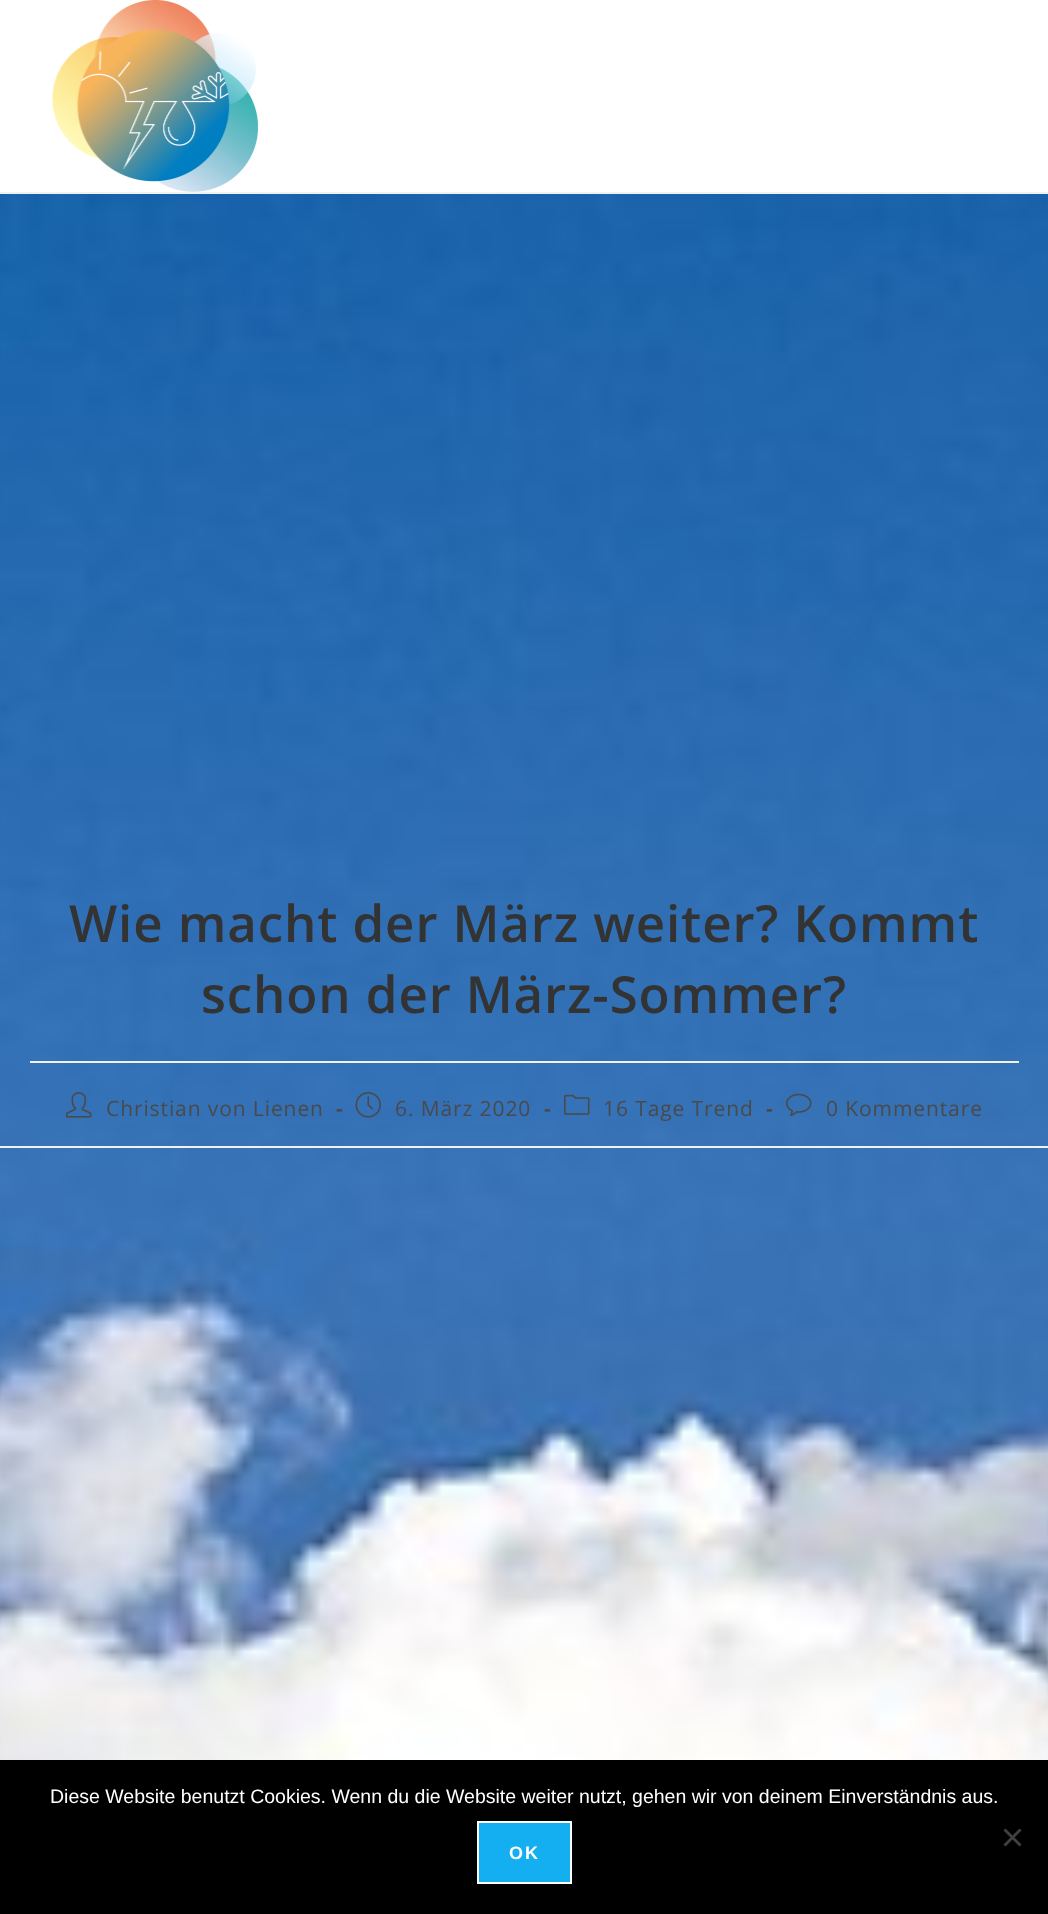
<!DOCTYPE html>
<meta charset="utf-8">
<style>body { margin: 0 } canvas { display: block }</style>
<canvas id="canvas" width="1048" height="1914"></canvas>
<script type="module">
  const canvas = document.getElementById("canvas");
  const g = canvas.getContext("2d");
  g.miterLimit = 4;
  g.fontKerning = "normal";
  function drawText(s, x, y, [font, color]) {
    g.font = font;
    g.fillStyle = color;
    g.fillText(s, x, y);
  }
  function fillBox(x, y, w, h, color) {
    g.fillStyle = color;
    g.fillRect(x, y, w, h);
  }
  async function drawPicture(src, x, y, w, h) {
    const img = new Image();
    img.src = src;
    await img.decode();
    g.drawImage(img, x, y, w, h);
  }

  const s1 = ["600 51px Open Sans", "#333333"];
  const s2 = ["21px Open Sans", "#4A4A4A"];
  const s3 = ["bold 21px Open Sans", "#4A4A4A"];
  const s4 = ["19.5px Liberation Sans", "#FFFFFF"];
  const s5 = ["bold 18px Liberation Sans", "#FFFFFF"];

  fillBox(0, 0, 1048, 1914, "#FFFFFF");
  await drawPicture("pic1.png", 0, 194, 1048, 1566);
  fillBox(0, 192, 1048, 2, "#F1F1F1");
  await drawPicture("pic2.png", 52, 0, 206, 192);
  fillBox(30, 1061, 989, 2, "#F1F1F1");
  g.letterSpacing = "0.9px";
  drawText("Wie macht der März weiter? Kommt", 69, 942, s1);
  drawText("schon der März-Sommer?", 201, 1013, s1);
  fillBox(0, 1146, 1048, 2, "#F1F1F1");
  await drawPicture("pic3.png", 66, 1092, 26, 26);
  drawText("Christian von Lienen", 106, 1116, s2);
  drawText("-", 336, 1116, s3);
  await drawPicture("pic4.png", 355, 1092, 26, 26);
  drawText("6. März 2020", 395, 1116, s2);
  drawText("-", 544, 1116, s3);
  await drawPicture("pic5.png", 564, 1094, 26, 21);
  drawText("16 Tage Trend", 603, 1116, s2);
  drawText("-", 766, 1116, s3);
  await drawPicture("pic6.png", 786, 1093, 26, 23);
  drawText("0 Kommentare", 826, 1116, s2);
  fillBox(0, 1760, 1048, 154, "#000000");
  g.letterSpacing = "0px";
  drawText("Diese Website benutzt Cookies. Wenn du die Website weiter nutzt, gehen wir von deinem Einverständnis aus.", 50, 1803, s4);
  g.fillStyle = "#404040";
  g.beginPath();
  g.moveTo(1019.5, 1828.5);
  g.lineTo(1021.5, 1830.5);
  g.lineTo(1005.5, 1846.5);
  g.lineTo(1003.5, 1844.5);
  g.closePath();
  g.fill();
  g.beginPath();
  g.moveTo(1003.5, 1830.5);
  g.lineTo(1005.5, 1828.5);
  g.lineTo(1021.5, 1844.5);
  g.lineTo(1019.5, 1846.5);
  g.closePath();
  g.fill();
  g.fillStyle = "#13AFF0";
  g.beginPath();
  g.rect(478, 1822, 93, 61);
  g.fill();
  g.strokeStyle = "#FFFFFF";
  g.lineWidth = 2;
  g.stroke();
  g.letterSpacing = "2px";
  drawText("OK", 509, 1859, s5);
</script>
